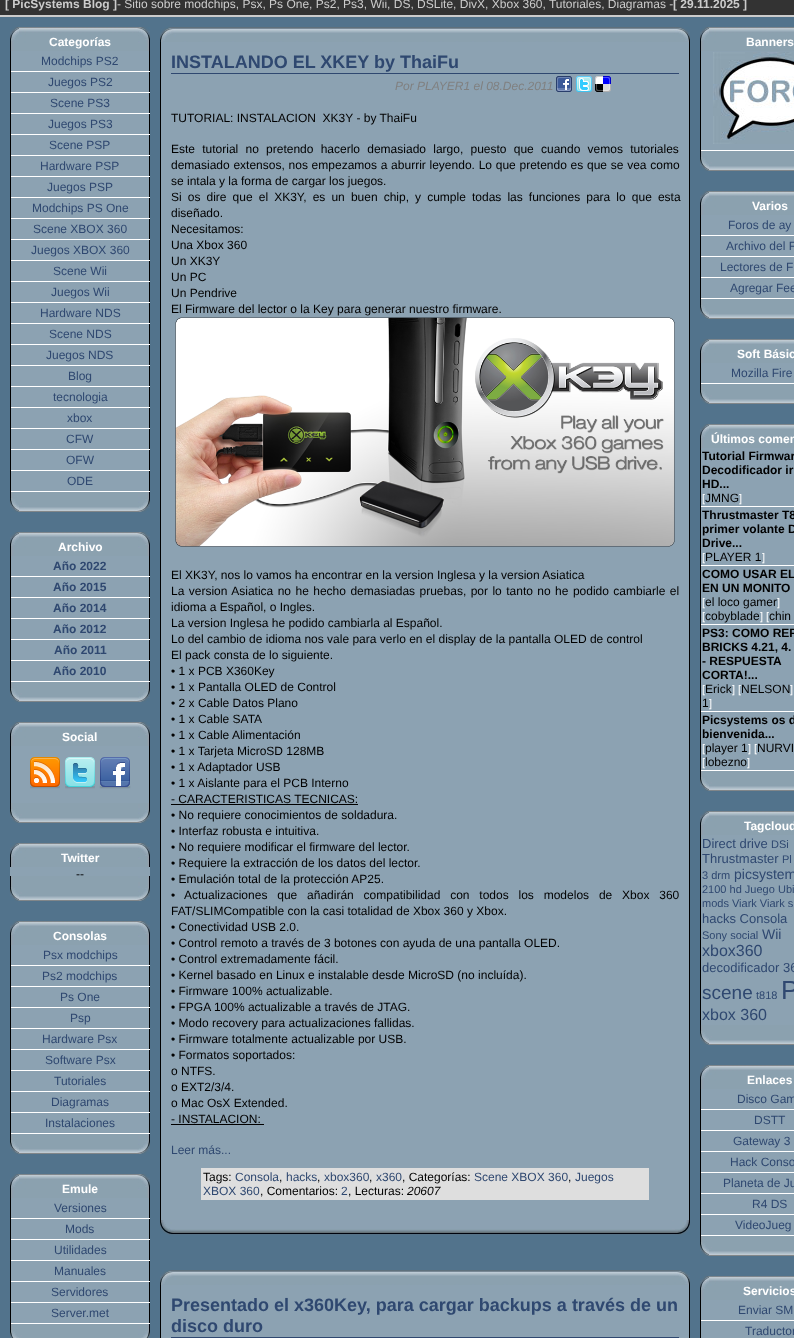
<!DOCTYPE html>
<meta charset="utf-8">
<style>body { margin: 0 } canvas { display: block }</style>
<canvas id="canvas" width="794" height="1338"></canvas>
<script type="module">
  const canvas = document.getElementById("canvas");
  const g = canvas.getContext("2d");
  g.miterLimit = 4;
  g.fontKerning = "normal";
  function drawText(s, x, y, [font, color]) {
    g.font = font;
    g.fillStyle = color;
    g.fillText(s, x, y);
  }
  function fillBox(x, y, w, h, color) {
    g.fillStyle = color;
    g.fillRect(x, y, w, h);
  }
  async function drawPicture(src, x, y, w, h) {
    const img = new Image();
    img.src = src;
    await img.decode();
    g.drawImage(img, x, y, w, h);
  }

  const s1 = ["bold 12px Liberation Sans", "#CCCCCC"];
  const s2 = ["12px Liberation Sans", "#CCCCCC"];
  const s3 = ["bold 12px Liberation Sans", "#FFFFFF"];
  const s4 = ["12px Liberation Sans", "#2F4870"];
  const s5 = ["bold 12px Liberation Sans", "#2F4870"];
  const s6 = ["12px Liberation Sans", "#000000"];
  const s7 = ["bold 18px Liberation Sans", "#2F4870"];
  const s8 = ["italic 12px Liberation Sans", "#808080"];
  const s9 = ["italic 12px Liberation Sans", "#000000"];
  const s10 = ["bold 12px Liberation Sans", "#000000"];
  const s11 = ["11px Liberation Sans", "#FFFFFF"];
  const s12 = ["13px Liberation Sans", "#2F4870"];
  const s13 = ["11px Liberation Sans", "#2F4870"];
  const s14 = ["14px Liberation Sans", "#2F4870"];
  const s15 = ["16px Liberation Sans", "#2F4870"];
  const s16 = ["19px Liberation Sans", "#2F4870"];
  const s17 = ["26px Liberation Sans", "#2F4870"];

  fillBox(0, 0, 794, 1338, "#52738C");
  fillBox(0, 15, 794, 2, "#CCCCCC");
  fillBox(0, 0, 794, 15, "#333333");
  drawText("[ PicSystems Blog ]", 5, 8, s1);
  drawText("- Sitio sobre modchips, Psx, Ps One, Ps2, Ps3, Wii, DS, DSLite, DivX, Xbox 360, Tutoriales, Diagramas -", 117, 8, s2);
  drawText("[ 29.11.2025 ]", 673, 8, s1);
  await drawPicture("pic1.png", 10, 27, 140, 24);
  drawText("Categorías", 49, 46, s3);
  fillBox(11, 51, 138, 419, "#8CA2B2");
  await drawPicture("pic2.png", 10, 492, 140, 20);
  fillBox(149, 51, 1, 441, "#000000");
  fillBox(10, 71, 140, 1, "#FFFFFF");
  fillBox(10, 51, 1, 21, "#000000");
  drawText("Modchips PS2", 41, 65, s4);
  fillBox(10, 92, 140, 1, "#FFFFFF");
  fillBox(10, 72, 1, 21, "#000000");
  drawText("Juegos PS2", 48, 86, s4);
  fillBox(10, 113, 140, 1, "#FFFFFF");
  fillBox(10, 93, 1, 21, "#000000");
  drawText("Scene PS3", 50, 107, s4);
  fillBox(10, 134, 140, 1, "#FFFFFF");
  fillBox(10, 114, 1, 21, "#000000");
  drawText("Juegos PS3", 48, 128, s4);
  fillBox(10, 155, 140, 1, "#FFFFFF");
  fillBox(10, 135, 1, 21, "#000000");
  drawText("Scene PSP", 49, 149, s4);
  fillBox(10, 176, 140, 1, "#FFFFFF");
  fillBox(10, 156, 1, 21, "#000000");
  drawText("Hardware PSP", 40, 170, s4);
  fillBox(10, 197, 140, 1, "#FFFFFF");
  fillBox(10, 177, 1, 21, "#000000");
  drawText("Juegos PSP", 47, 191, s4);
  fillBox(10, 218, 140, 1, "#FFFFFF");
  fillBox(10, 198, 1, 21, "#000000");
  drawText("Modchips PS One", 32, 212, s4);
  fillBox(10, 239, 140, 1, "#FFFFFF");
  fillBox(10, 219, 1, 21, "#000000");
  drawText("Scene XBOX 360", 33, 233, s4);
  fillBox(10, 260, 140, 1, "#FFFFFF");
  fillBox(10, 240, 1, 21, "#000000");
  drawText("Juegos XBOX 360", 31, 254, s4);
  fillBox(10, 281, 140, 1, "#FFFFFF");
  fillBox(10, 261, 1, 21, "#000000");
  drawText("Scene Wii", 53, 275, s4);
  fillBox(10, 302, 140, 1, "#FFFFFF");
  fillBox(10, 282, 1, 21, "#000000");
  drawText("Juegos Wii", 51, 296, s4);
  fillBox(10, 323, 140, 1, "#FFFFFF");
  fillBox(10, 303, 1, 21, "#000000");
  drawText("Hardware NDS", 40, 317, s4);
  fillBox(10, 344, 140, 1, "#FFFFFF");
  fillBox(10, 324, 1, 21, "#000000");
  drawText("Scene NDS", 49, 338, s4);
  fillBox(10, 365, 140, 1, "#FFFFFF");
  fillBox(10, 345, 1, 21, "#000000");
  drawText("Juegos NDS", 46, 359, s4);
  fillBox(10, 386, 140, 1, "#FFFFFF");
  fillBox(10, 366, 1, 21, "#000000");
  drawText("Blog", 68, 380, s4);
  fillBox(10, 407, 140, 1, "#FFFFFF");
  fillBox(10, 387, 1, 21, "#000000");
  drawText("tecnologia", 53, 401, s4);
  fillBox(10, 428, 140, 1, "#FFFFFF");
  fillBox(10, 408, 1, 21, "#000000");
  drawText("xbox", 67, 422, s4);
  fillBox(10, 449, 140, 1, "#FFFFFF");
  fillBox(10, 429, 1, 21, "#000000");
  drawText("CFW", 66, 443, s4);
  fillBox(10, 470, 140, 1, "#FFFFFF");
  fillBox(10, 450, 1, 21, "#000000");
  drawText("OFW", 66, 464, s4);
  fillBox(11, 471, 138, 20, "#8CA2B2");
  fillBox(10, 491, 140, 1, "#FFFFFF");
  fillBox(10, 471, 1, 21, "#000000");
  drawText("ODE", 67, 485, s4);
  await drawPicture("pic1.png", 10, 532, 140, 24);
  drawText("Archivo", 58, 551, s3);
  fillBox(11, 556, 138, 104, "#8CA2B2");
  await drawPicture("pic2.png", 10, 682, 140, 20);
  fillBox(149, 556, 1, 126, "#000000");
  fillBox(10, 576, 140, 1, "#FFFFFF");
  fillBox(10, 556, 1, 21, "#000000");
  drawText("Año 2022", 53, 570, s5);
  fillBox(10, 597, 140, 1, "#FFFFFF");
  fillBox(10, 577, 1, 21, "#000000");
  drawText("Año 2015", 53, 591, s5);
  fillBox(10, 618, 140, 1, "#FFFFFF");
  fillBox(10, 598, 1, 21, "#000000");
  drawText("Año 2014", 53, 612, s5);
  fillBox(10, 639, 140, 1, "#FFFFFF");
  fillBox(10, 619, 1, 21, "#000000");
  drawText("Año 2012", 53, 633, s5);
  fillBox(10, 660, 140, 1, "#FFFFFF");
  fillBox(10, 640, 1, 21, "#000000");
  drawText("Año 2011", 54, 654, s5);
  fillBox(11, 661, 138, 20, "#8CA2B2");
  fillBox(10, 681, 140, 1, "#FFFFFF");
  fillBox(10, 661, 1, 21, "#000000");
  drawText("Año 2010", 53, 675, s5);
  await drawPicture("pic1.png", 10, 722, 140, 24);
  drawText("Social", 62, 741, s3);
  fillBox(11, 746, 138, 57, "#8CA2B2");
  fillBox(149, 746, 1, 57, "#000000");
  fillBox(10, 746, 1, 57, "#000000");
  await drawPicture("pic3.png", 30, 757, 30, 32);
  await drawPicture("pic4.png", 65, 757, 30, 32);
  await drawPicture("pic5.png", 99, 757, 32, 32);
  await drawPicture("pic2.png", 10, 803, 140, 20);
  await drawPicture("pic1.png", 10, 843, 140, 24);
  drawText("Twitter", 61, 862, s3);
  fillBox(10, 867, 140, 9, "#8CA2B2");
  await drawPicture("pic6.png", 10, 876, 140, 25);
  drawText("--", 76, 878, s6);
  await drawPicture("pic1.png", 10, 921, 140, 24);
  drawText("Consolas", 53, 940, s3);
  fillBox(11, 945, 138, 167, "#8CA2B2");
  await drawPicture("pic2.png", 10, 1134, 140, 20);
  fillBox(149, 945, 1, 189, "#000000");
  fillBox(10, 965, 140, 1, "#FFFFFF");
  fillBox(10, 945, 1, 21, "#000000");
  drawText("Psx modchips", 43, 959, s4);
  fillBox(10, 986, 140, 1, "#FFFFFF");
  fillBox(10, 966, 1, 21, "#000000");
  drawText("Ps2 modchips", 42, 980, s4);
  fillBox(10, 1007, 140, 1, "#FFFFFF");
  fillBox(10, 987, 1, 21, "#000000");
  drawText("Ps One", 60, 1001, s4);
  fillBox(10, 1028, 140, 1, "#FFFFFF");
  fillBox(10, 1008, 1, 21, "#000000");
  drawText("Psp", 70, 1022, s4);
  fillBox(10, 1049, 140, 1, "#FFFFFF");
  fillBox(10, 1029, 1, 21, "#000000");
  drawText("Hardware Psx", 42, 1043, s4);
  fillBox(10, 1070, 140, 1, "#FFFFFF");
  fillBox(10, 1050, 1, 21, "#000000");
  drawText("Software Psx", 45, 1064, s4);
  fillBox(10, 1091, 140, 1, "#FFFFFF");
  fillBox(10, 1071, 1, 21, "#000000");
  drawText("Tutoriales", 54, 1085, s4);
  fillBox(10, 1112, 140, 1, "#FFFFFF");
  fillBox(10, 1092, 1, 21, "#000000");
  drawText("Diagramas", 51, 1106, s4);
  fillBox(11, 1113, 138, 20, "#8CA2B2");
  fillBox(10, 1133, 140, 1, "#FFFFFF");
  fillBox(10, 1113, 1, 21, "#000000");
  drawText("Instalaciones", 45, 1127, s4);
  await drawPicture("pic1.png", 10, 1174, 140, 24);
  drawText("Emule", 62, 1193, s3);
  fillBox(11, 1198, 138, 104, "#8CA2B2");
  await drawPicture("pic7.png", 10, 1324, 140, 14);
  fillBox(149, 1198, 1, 126, "#000000");
  fillBox(10, 1218, 140, 1, "#FFFFFF");
  fillBox(10, 1198, 1, 21, "#000000");
  drawText("Versiones", 54, 1212, s4);
  fillBox(10, 1239, 140, 1, "#FFFFFF");
  fillBox(10, 1219, 1, 21, "#000000");
  drawText("Mods", 65, 1233, s4);
  fillBox(10, 1260, 140, 1, "#FFFFFF");
  fillBox(10, 1240, 1, 21, "#000000");
  drawText("Utilidades", 54, 1254, s4);
  fillBox(10, 1281, 140, 1, "#FFFFFF");
  fillBox(10, 1261, 1, 21, "#000000");
  drawText("Manuales", 54, 1275, s4);
  fillBox(10, 1302, 140, 1, "#FFFFFF");
  fillBox(10, 1282, 1, 21, "#000000");
  drawText("Servidores", 51, 1296, s4);
  fillBox(11, 1303, 138, 20, "#8CA2B2");
  fillBox(10, 1323, 140, 1, "#FFFFFF");
  fillBox(10, 1303, 1, 21, "#000000");
  drawText("Server.met", 51, 1317, s4);
  await drawPicture("pic8.png", 160, 27, 530, 15);
  fillBox(161, 42, 528, 1178, "#8CA2B2");
  fillBox(689, 42, 1, 1178, "#000000");
  fillBox(160, 42, 1, 1178, "#000000");
  fillBox(171, 73, 508, 1, "#2F4870");
  drawText("INSTALANDO EL XKEY by ThaiFu", 171, 68, s7);
  drawText("Por PLAYER1 el 08.Dec.2011", 395, 90, s8);
  await drawPicture("pic9.png", 556, 76, 16, 16);
  await drawPicture("pic10.png", 576, 76, 16, 16);
  await drawPicture("pic11.png", 595, 76, 16, 16);
  drawText("TUTORIAL: INSTALACION  XK3Y - by ThaiFu", 171, 122, s6);
  g.wordSpacing = "3.9px";
  drawText("Este tutorial no pretendo hacerlo demasiado largo, puesto que cuando vemos tutoriales", 171, 153, s6);
  g.wordSpacing = "0.4px";
  drawText("demasiado extensos, nos empezamos a aburrir leyendo. Lo que pretendo es que se vea como", 171, 169, s6);
  g.wordSpacing = "0px";
  drawText("se intala y la forma de cargar los juegos.", 171, 185, s6);
  g.wordSpacing = "2.75px";
  drawText("Si os dire que el XK3Y, es un buen chip, y cumple todas las funciones para lo que esta", 171, 201, s6);
  g.wordSpacing = "0px";
  drawText("diseñado.", 171, 217, s6);
  drawText("Necesitamos:", 171, 233, s6);
  drawText("Una Xbox 360", 171, 249, s6);
  drawText("Un XK3Y", 171, 265, s6);
  drawText("Un PC", 171, 281, s6);
  drawText("Un Pendrive", 171, 297, s6);
  drawText("El Firmware del lector o la Key para generar nuestro firmware.", 171, 313, s6);
  await drawPicture("pic12.png", 175, 317, 500, 230);
  drawText("El XK3Y, nos lo vamos ha encontrar en la version Inglesa y la version Asiatica", 171, 579, s6);
  g.wordSpacing = "1.1px";
  drawText("La version Asiatica no he hecho demasiadas pruebas, por lo tanto no he podido cambiarle el", 171, 595, s6);
  g.wordSpacing = "0px";
  drawText("idioma a Español, o Ingles.", 171, 611, s6);
  drawText("La version Inglesa he podido cambiarla al Español.", 171, 627, s6);
  drawText("Lo del cambio de idioma nos vale para verlo en el display de la pantalla OLED de control", 171, 643, s6);
  drawText("El pack consta de lo siguiente.", 171, 659, s6);
  drawText("• 1 x PCB X360Key", 171, 675, s6);
  drawText("• 1 x Pantalla OLED de Control", 171, 691, s6);
  drawText("• 2 x Cable Datos Plano", 171, 707, s6);
  drawText("• 1 x Cable SATA", 171, 723, s6);
  drawText("• 1 x Cable Alimentación", 171, 739, s6);
  drawText("• 1 x Tarjeta MicroSD 128MB", 171, 755, s6);
  drawText("• 1 x Adaptador USB", 171, 771, s6);
  drawText("• 1 x Aislante para el PCB Interno", 171, 787, s6);
  drawText("- CARACTERISTICAS TECNICAS:", 171, 803, s6);
  fillBox(171, 804, 187, 1, "#000000");
  drawText("• No requiere conocimientos de soldadura.", 171, 819, s6);
  drawText("• Interfaz robusta e intuitiva.", 171, 835, s6);
  drawText("• No requiere modificar el firmware del lector.", 171, 851, s6);
  drawText("• Requiere la extracción de los datos del lector.", 171, 867, s6);
  drawText("• Emulación total de la protección AP25.", 171, 883, s6);
  drawText("•", 171, 899, s6);
  g.wordSpacing = "6.5px";
  drawText("Actualizaciones que añadirán compatibilidad con todos los modelos de Xbox 360", 184, 899, s6);
  g.wordSpacing = "0px";
  drawText("FAT/SLIMCompatible con la casi totalidad de Xbox 360 y Xbox.", 171, 915, s6);
  drawText("• Conectividad USB 2.0.", 171, 931, s6);
  drawText("• Control remoto a través de 3 botones con ayuda de una pantalla OLED.", 171, 947, s6);
  drawText("• Control extremadamente fácil.", 171, 963, s6);
  drawText("• Kernel basado en Linux e instalable desde MicroSD (no incluída).", 171, 979, s6);
  drawText("• Firmware 100% actualizable.", 171, 995, s6);
  drawText("• FPGA 100% actualizable a través de JTAG.", 171, 1011, s6);
  drawText("• Modo recovery para actualizaciones fallidas.", 171, 1027, s6);
  drawText("• Firmware totalmente actualizable por USB.", 171, 1043, s6);
  drawText("• Formatos soportados:", 171, 1059, s6);
  drawText("o NTFS.", 171, 1075, s6);
  drawText("o EXT2/3/4.", 171, 1091, s6);
  drawText("o Mac OsX Extended.", 171, 1107, s6);
  drawText("- INSTALACION:", 171, 1123, s6);
  fillBox(171, 1124, 93, 1, "#000000");
  drawText("Leer más...", 171, 1154, s4);
  fillBox(201, 1168, 448, 32, "#DEDEDE");
  drawText("Tags:", 203, 1181, s6);
  drawText("Consola", 235, 1181, s4);
  drawText(",", 279, 1181, s6);
  drawText("hacks", 286, 1181, s4);
  drawText(",", 317, 1181, s6);
  drawText("xbox360", 324, 1181, s4);
  drawText(",", 369, 1181, s6);
  drawText("x360", 376, 1181, s4);
  drawText(", Categorías:", 402, 1181, s6);
  drawText("Scene XBOX 360", 474, 1181, s4);
  drawText(",", 568, 1181, s6);
  drawText("Juegos", 575, 1181, s4);
  drawText("XBOX 360", 203, 1195, s4);
  drawText(", Comentarios:", 260, 1195, s6);
  drawText("2", 341, 1195, s4);
  drawText(", Lecturas:", 348, 1195, s6);
  drawText("20607", 407, 1195, s9);
  await drawPicture("pic13.png", 160, 1220, 530, 15);
  await drawPicture("pic8.png", 160, 1270, 530, 15);
  fillBox(161, 1285, 528, 53, "#8CA2B2");
  fillBox(689, 1285, 1, 53, "#000000");
  fillBox(160, 1285, 1, 53, "#000000");
  fillBox(171, 1337, 508, 1, "#2F4870");
  drawText("Presentado el x360Key, para cargar backups a través de un", 171, 1311, s7);
  drawText("disco duro", 171, 1332, s7);
  await drawPicture("pic14.png", 700, 27, 94, 24);
  drawText("Banners", 746, 46, s3);
  await drawPicture("pic15.png", 700, 151, 94, 20);
  fillBox(701, 51, 93, 99, "#8CA2B2");
  fillBox(700, 150, 94, 1, "#FFFFFF");
  fillBox(700, 51, 1, 100, "#000000");
  await drawPicture("pic16.png", 713, 52, 81, 92);
  await drawPicture("pic14.png", 700, 191, 94, 24);
  drawText("Varios", 752, 210, s3);
  fillBox(701, 215, 93, 62, "#8CA2B2");
  await drawPicture("pic15.png", 700, 299, 94, 20);
  fillBox(700, 235, 94, 1, "#FFFFFF");
  fillBox(700, 215, 1, 21, "#000000");
  drawText("Foros de ay", 728, 229, s4);
  fillBox(700, 256, 94, 1, "#FFFFFF");
  fillBox(700, 236, 1, 21, "#000000");
  drawText("Archivo del F", 726, 250, s4);
  fillBox(700, 277, 94, 1, "#FFFFFF");
  fillBox(700, 257, 1, 21, "#000000");
  drawText("Lectores de F", 720, 271, s4);
  fillBox(701, 278, 93, 20, "#8CA2B2");
  fillBox(700, 298, 94, 1, "#FFFFFF");
  fillBox(700, 278, 1, 21, "#000000");
  drawText("Agregar Fee", 730, 292, s4);
  await drawPicture("pic14.png", 700, 339, 94, 24);
  drawText("Soft Básic", 737, 358, s3);
  await drawPicture("pic15.png", 700, 384, 94, 20);
  fillBox(701, 363, 93, 20, "#8CA2B2");
  fillBox(700, 383, 94, 1, "#FFFFFF");
  fillBox(700, 363, 1, 21, "#000000");
  drawText("Mozilla Fire", 731, 377, s4);
  await drawPicture("pic14.png", 700, 424, 94, 24);
  drawText("Últimos comen", 711, 443, s3);
  fillBox(701, 448, 93, 58, "#8CA2B2");
  fillBox(700, 506, 94, 1, "#FFFFFF");
  fillBox(700, 448, 1, 59, "#000000");
  drawText("Tutorial Firmwar", 702, 460, s10);
  drawText("Decodificador ir", 702, 474, s10);
  drawText("HD...", 702, 488, s10);
  drawText("[", 702, 502, s11);
  drawText("JMNG", 705, 502, s6);
  drawText("]", 739, 502, s11);
  fillBox(701, 507, 93, 58, "#8CA2B2");
  fillBox(700, 565, 94, 1, "#FFFFFF");
  fillBox(700, 507, 1, 59, "#000000");
  drawText("Thrustmaster T8", 702, 519, s10);
  drawText("primer volante D", 702, 533, s10);
  drawText("Drive...", 702, 547, s10);
  drawText("[", 702, 561, s11);
  drawText("PLAYER 1", 705, 561, s6);
  drawText("]", 762, 561, s11);
  fillBox(701, 566, 93, 58, "#8CA2B2");
  fillBox(700, 624, 94, 1, "#FFFFFF");
  fillBox(700, 566, 1, 59, "#000000");
  drawText("COMO USAR EL", 702, 578, s10);
  drawText("EN UN MONITO", 702, 592, s10);
  drawText("[", 702, 606, s11);
  drawText("el loco gamer", 705, 606, s6);
  drawText("]", 777, 606, s11);
  drawText("[", 702, 620, s11);
  drawText("cobyblade", 705, 620, s6);
  drawText("] [", 760, 620, s11);
  drawText("chin", 769, 620, s6);
  fillBox(701, 625, 93, 86, "#8CA2B2");
  fillBox(700, 711, 94, 1, "#FFFFFF");
  fillBox(700, 625, 1, 87, "#000000");
  drawText("PS3: COMO REP", 702, 637, s10);
  drawText("BRICKS 4.21, 4.", 702, 651, s10);
  drawText("- RESPUESTA", 702, 665, s10);
  drawText("CORTA!...", 702, 679, s10);
  drawText("[", 702, 693, s11);
  drawText("Erick", 705, 693, s6);
  drawText("] [", 732, 693, s11);
  drawText("NELSON", 741, 693, s6);
  drawText("]", 790, 693, s11);
  drawText("1", 702, 707, s6);
  drawText("]", 709, 707, s11);
  fillBox(701, 712, 93, 58, "#8CA2B2");
  fillBox(700, 770, 94, 1, "#FFFFFF");
  fillBox(700, 712, 1, 59, "#000000");
  drawText("Picsystems os d", 702, 724, s10);
  drawText("bienvenida...", 702, 738, s10);
  drawText("[", 702, 752, s11);
  drawText("player 1", 705, 752, s6);
  drawText("] [", 748, 752, s11);
  drawText("NURVI", 757, 752, s6);
  drawText("[", 702, 766, s11);
  drawText("lobezno", 705, 766, s6);
  drawText("]", 747, 766, s11);
  await drawPicture("pic15.png", 700, 771, 94, 20);
  await drawPicture("pic14.png", 700, 811, 94, 24);
  drawText("Tagcloud", 744, 830, s3);
  fillBox(701, 835, 93, 190, "#8CA2B2");
  fillBox(700, 835, 1, 190, "#000000");
  drawText("Direct drive", 702, 848, s12);
  drawText("DSi", 771, 848, s13);
  drawText("Thrustmaster", 702, 863, s12);
  drawText("Pl", 782, 863, s13);
  drawText("3 drm", 702, 879, s13);
  drawText("picsystem", 734, 879, s14);
  drawText("2100 hd Juego", 702, 893, s13);
  drawText("Ubi", 778, 893, s13);
  drawText("mods Viark Viark s", 702, 907, s13);
  drawText("hacks Consola", 702, 923, s12);
  drawText("Sony social", 702, 939, s13);
  drawText("Wii", 762, 939, s14);
  drawText("xbox360", 702, 956, s15);
  drawText("decodificador 36", 702, 972, s12);
  drawText("scene", 702, 999, s16);
  drawText("t818", 756, 999, s13);
  drawText("P", 781, 999, s17);
  drawText("xbox 360", 702, 1020, s15);
  await drawPicture("pic15.png", 700, 1025, 94, 20);
  await drawPicture("pic14.png", 700, 1065, 94, 24);
  drawText("Enlaces", 747, 1084, s3);
  fillBox(701, 1089, 93, 125, "#8CA2B2");
  await drawPicture("pic15.png", 700, 1236, 94, 20);
  fillBox(700, 1109, 94, 1, "#FFFFFF");
  fillBox(700, 1089, 1, 21, "#000000");
  drawText("Disco Gam", 737, 1103, s4);
  fillBox(700, 1130, 94, 1, "#FFFFFF");
  fillBox(700, 1110, 1, 21, "#000000");
  drawText("DSTT", 754, 1124, s4);
  fillBox(700, 1151, 94, 1, "#FFFFFF");
  fillBox(700, 1131, 1, 21, "#000000");
  drawText("Gateway 3", 733, 1145, s4);
  fillBox(700, 1172, 94, 1, "#FFFFFF");
  fillBox(700, 1152, 1, 21, "#000000");
  drawText("Hack Conso", 730, 1166, s4);
  fillBox(700, 1193, 94, 1, "#FFFFFF");
  fillBox(700, 1173, 1, 21, "#000000");
  drawText("Planeta de Ju", 723, 1187, s4);
  fillBox(700, 1214, 94, 1, "#FFFFFF");
  fillBox(700, 1194, 1, 21, "#000000");
  drawText("R4 DS", 752, 1208, s4);
  fillBox(701, 1215, 93, 20, "#8CA2B2");
  fillBox(700, 1235, 94, 1, "#FFFFFF");
  fillBox(700, 1215, 1, 21, "#000000");
  drawText("VideoJueg", 735, 1229, s4);
  await drawPicture("pic14.png", 700, 1276, 94, 24);
  drawText("Servicios", 743, 1295, s3);
  fillBox(701, 1300, 93, 38, "#8CA2B2");
  fillBox(700, 1320, 94, 1, "#FFFFFF");
  fillBox(700, 1300, 1, 38, "#000000");
  drawText("Enviar SM", 738, 1314, s4);
  drawText("Traductor", 745, 1335, s4);
</script>
